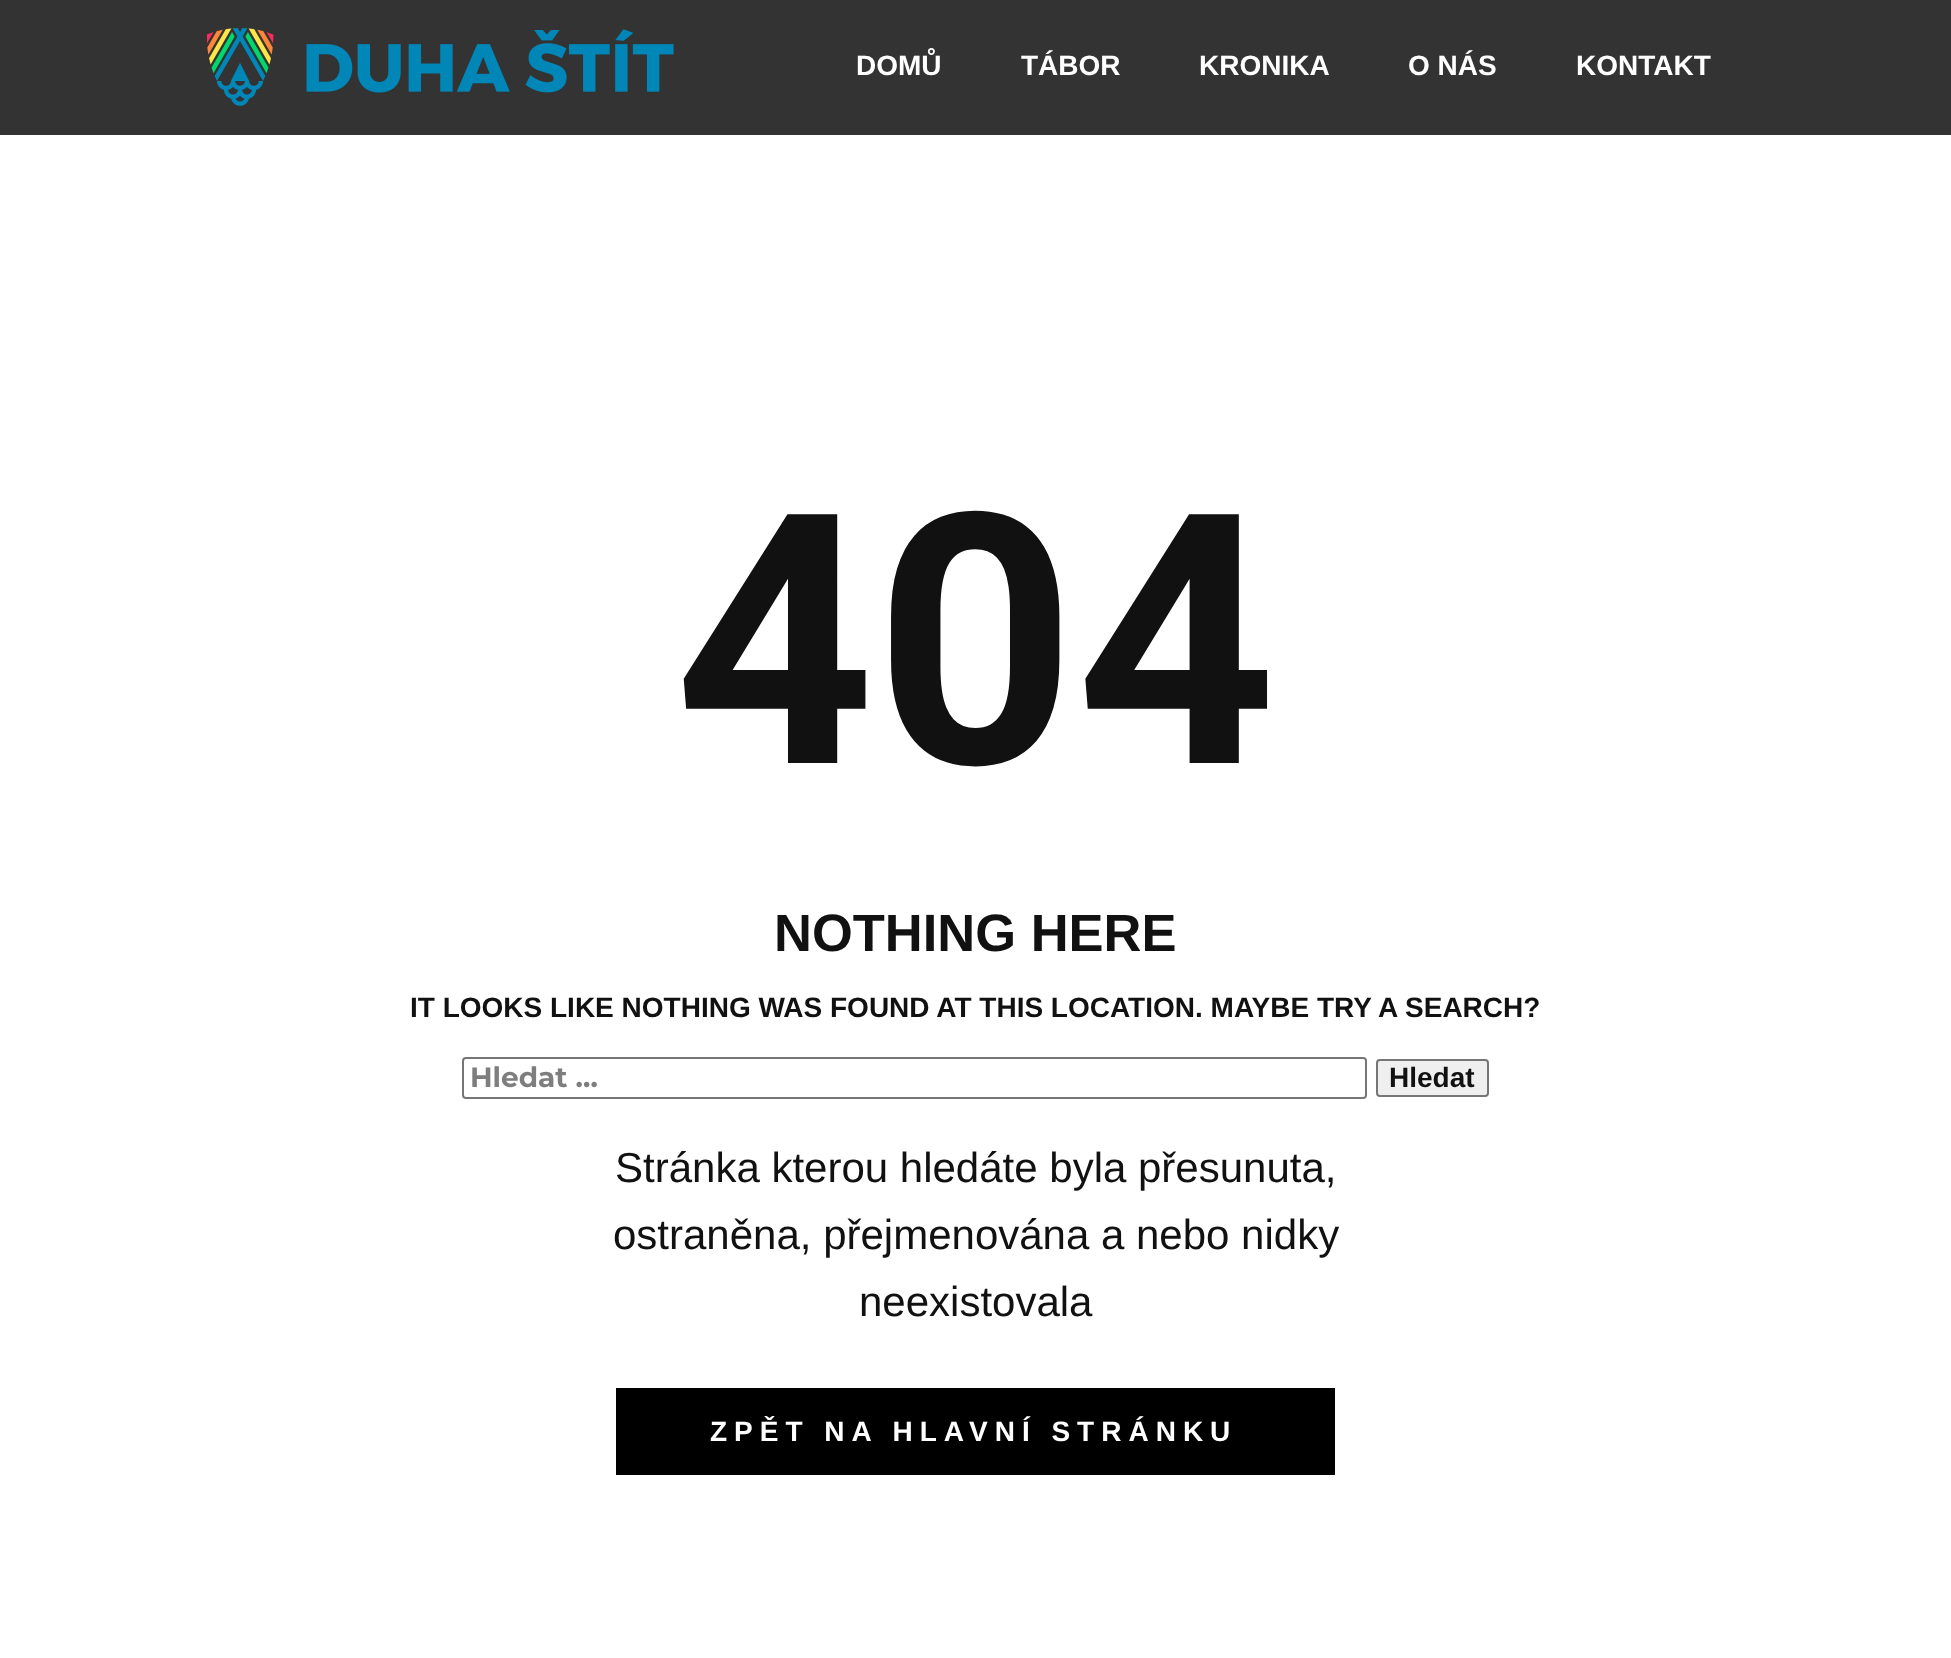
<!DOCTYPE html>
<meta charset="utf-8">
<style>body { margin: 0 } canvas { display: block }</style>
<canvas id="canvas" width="1951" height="1658"></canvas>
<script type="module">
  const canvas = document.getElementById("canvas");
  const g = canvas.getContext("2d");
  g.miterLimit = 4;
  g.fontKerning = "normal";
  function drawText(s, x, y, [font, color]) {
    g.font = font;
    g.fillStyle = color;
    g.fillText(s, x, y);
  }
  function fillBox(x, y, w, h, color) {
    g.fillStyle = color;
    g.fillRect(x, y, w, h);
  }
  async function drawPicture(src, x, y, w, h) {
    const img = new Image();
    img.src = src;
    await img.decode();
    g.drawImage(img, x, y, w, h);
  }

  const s1 = ["bold 28px Liberation Sans", "#FFFFFF"];
  const s2 = ["bold 350px Roboto", "#111111"];
  const s3 = ["bold 52.5px Liberation Sans", "#111111"];
  const s4 = ["bold 28px Liberation Sans", "#111111"];
  const s5 = ["bold 28px Montserrat", "#7E7E7E"];
  const s6 = ["42px Liberation Sans", "#111111"];

  fillBox(0, 0, 1951, 1658, "#FFFFFF");
  fillBox(0, 0, 1951, 135, "#333333");
  await drawPicture("pic1.png", 207, 28, 467, 78);
  drawText("DOMŮ", 856, 75, s1);
  drawText("TÁBOR", 1021, 75, s1);
  drawText("KRONIKA", 1199, 75, s1);
  drawText("O NÁS", 1408, 75, s1);
  drawText("KONTAKT", 1576, 75, s1);
  drawText("404", 674, 763, s2);
  drawText("NOTHING HERE", 774, 951, s3);
  drawText("IT LOOKS LIKE NOTHING WAS FOUND AT THIS LOCATION. MAYBE TRY A SEARCH?", 410, 1017, s4);
  g.beginPath();
  g.roundRect(463, 1058, 903, 40, 3);
  g.strokeStyle = "#767676";
  g.lineWidth = 2;
  g.stroke();
  drawText("Hledat …", 470, 1087, s5);
  g.fillStyle = "#EFEFEF";
  g.beginPath();
  g.roundRect(1377, 1060, 111, 36, 3);
  g.fill();
  g.stroke();
  drawText("Hledat", 1389, 1087, s4);
  drawText("Stránka kterou hledáte byla přesunuta,", 615, 1182, s6);
  drawText("ostraněna, přejmenována a nebo nidky", 613, 1249, s6);
  drawText("neexistovala", 859, 1316, s6);
  fillBox(616, 1388, 719, 87, "#000000");
  g.letterSpacing = "7px";
  drawText("ZPĚT NA HLAVNÍ STRÁNKU", 710, 1441, s1);
</script>
